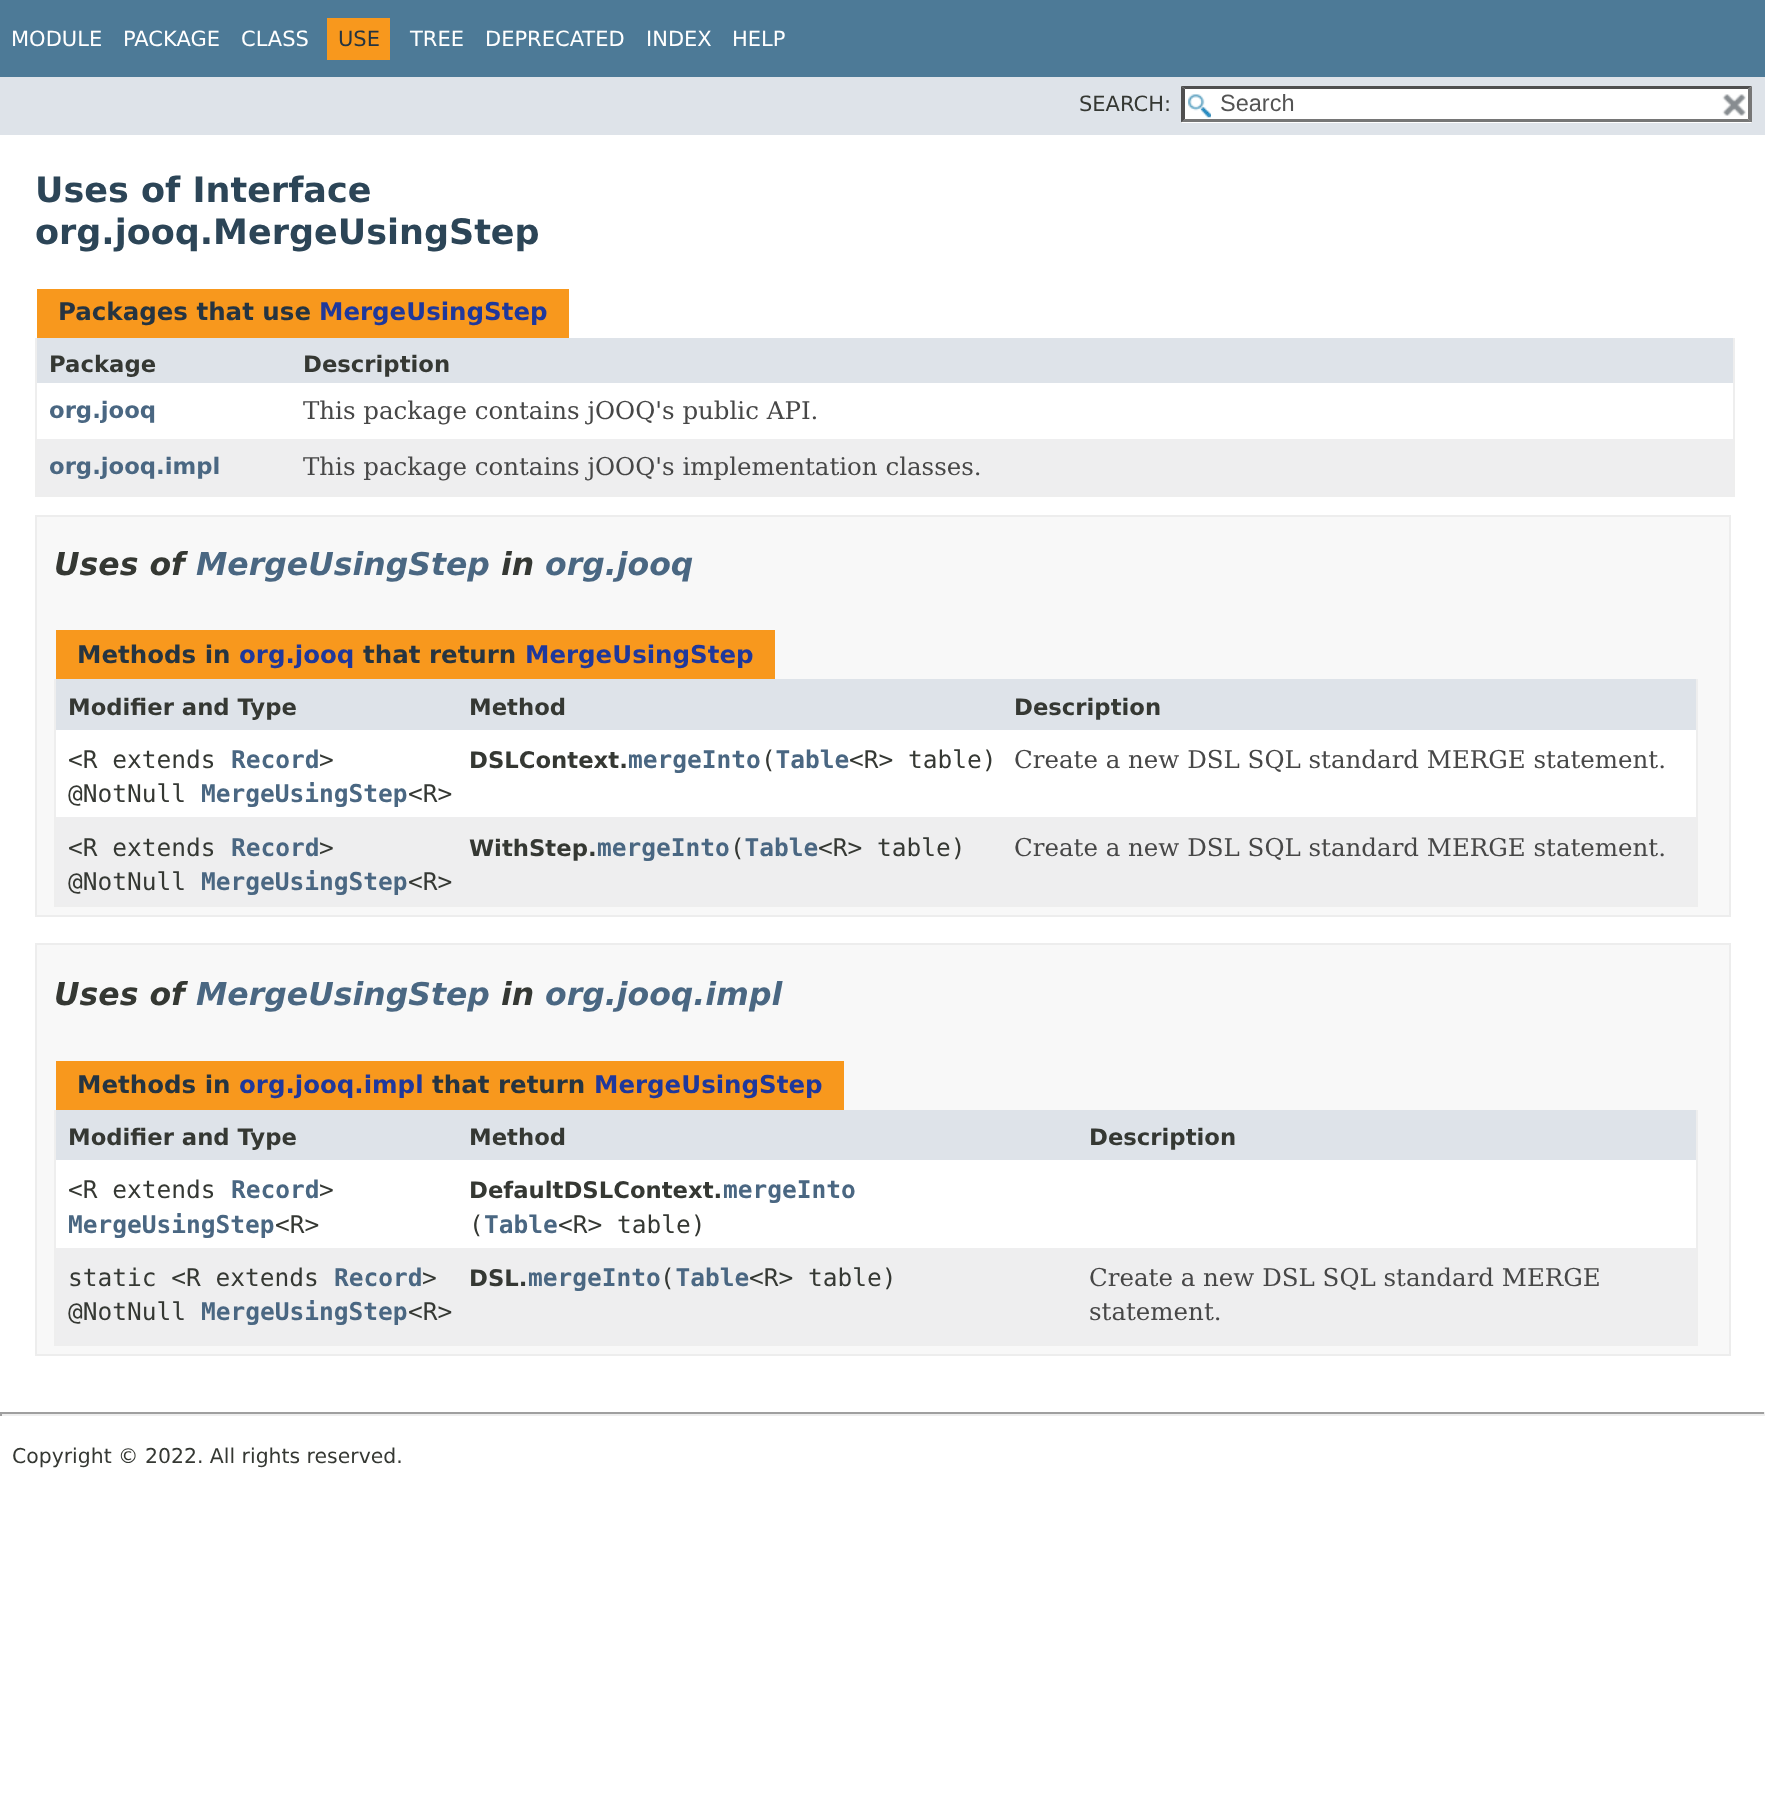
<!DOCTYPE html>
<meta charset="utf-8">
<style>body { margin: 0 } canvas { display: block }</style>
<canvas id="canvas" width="1765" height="1813"></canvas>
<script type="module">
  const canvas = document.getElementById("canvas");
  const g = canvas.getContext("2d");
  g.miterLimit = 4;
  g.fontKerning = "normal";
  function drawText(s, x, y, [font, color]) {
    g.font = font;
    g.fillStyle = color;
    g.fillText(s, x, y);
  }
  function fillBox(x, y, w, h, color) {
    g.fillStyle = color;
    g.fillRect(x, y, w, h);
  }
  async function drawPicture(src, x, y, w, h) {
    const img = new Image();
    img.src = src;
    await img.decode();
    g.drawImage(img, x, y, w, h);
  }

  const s1 = ["21px DejaVu Sans", "#FFFFFF"];
  const s2 = ["21px DejaVu Sans", "#253441"];
  const s3 = ["21px DejaVu Sans", "#353833"];
  const s4 = ["23.5px Liberation Sans", "#545454"];
  const s5 = ["bold 35px DejaVu Sans", "#2C4557"];
  const s6 = ["bold 24.5px DejaVu Sans", "#253441"];
  const s7 = ["bold 24.5px DejaVu Sans", "#1F389C"];
  const s8 = ["bold 22.75px DejaVu Sans", "#353833"];
  const s9 = ["bold 22.75px DejaVu Sans", "#4A6782"];
  const s10 = ["24.5px DejaVu Serif", "#474747"];
  const s11 = ["italic bold 31.5px DejaVu Sans", "#353833"];
  const s12 = ["italic bold 31.5px DejaVu Sans", "#4A6782"];
  const s13 = ["24.5px DejaVu Sans Mono", "#353833"];
  const s14 = ["bold 24.5px DejaVu Sans Mono", "#4A6782"];
  const s15 = ["20.4px DejaVu Sans", "#353833"];

  fillBox(0, 0, 1765, 1813, "#FFFFFF");
  fillBox(0, 0, 1765, 77, "#4D7A97");
  drawText("MODULE", 11, 46, s1);
  drawText("PACKAGE", 123, 46, s1);
  drawText("CLASS", 241, 46, s1);
  fillBox(327, 18, 63, 42, "#F8981D");
  drawText("USE", 338, 46, s2);
  drawText("TREE", 410, 46, s1);
  drawText("DEPRECATED", 485, 46, s1);
  drawText("INDEX", 646, 46, s1);
  drawText("HELP", 732, 46, s1);
  fillBox(0, 77, 1765, 58, "#DEE3E9");
  drawText("SEARCH:", 1079, 111, s3);
  fillBox(1181, 86, 571, 37, "#FFFFFF");
  await drawPicture("pic1.png", 1188, 94, 23, 24);
  g.fillStyle = "#4F4F4F";
  g.beginPath();
  g.moveTo(1181, 86);
  g.lineTo(1752, 86);
  g.lineTo(1748, 89);
  g.lineTo(1185, 89);
  g.closePath();
  g.fill();
  g.fillStyle = "#767676";
  g.beginPath();
  g.moveTo(1752, 86);
  g.lineTo(1752, 122.5);
  g.lineTo(1748, 119);
  g.lineTo(1748, 89);
  g.closePath();
  g.fill();
  g.beginPath();
  g.moveTo(1752, 122);
  g.lineTo(1181, 122);
  g.lineTo(1185, 119);
  g.lineTo(1748, 119);
  g.closePath();
  g.fill();
  g.fillStyle = "#4F4F4F";
  g.beginPath();
  g.moveTo(1181, 122.5);
  g.lineTo(1181, 86);
  g.lineTo(1185, 89);
  g.lineTo(1185, 119);
  g.closePath();
  g.fill();
  drawText("Search", 1220, 111, s4);
  await drawPicture("pic2.png", 1722, 94, 24, 22);
  drawText("Uses of Interface", 35, 202, s5);
  drawText("org.jooq.MergeUsingStep", 35, 244, s5);
  fillBox(37, 289, 532, 49, "#F8981D");
  drawText("Packages that use", 58, 320, s6);
  drawText("MergeUsingStep", 319, 320, s7);
  fillBox(1733, 338, 2, 159, "#EEEEEE");
  fillBox(35, 495, 1699, 2, "#EEEEEE");
  fillBox(35, 338, 2, 159, "#EEEEEE");
  fillBox(37, 338, 1696, 45, "#DEE3E9");
  drawText("Package", 49, 372, s8);
  drawText("Description", 303, 372, s8);
  drawText("org.jooq", 49, 418, s9);
  drawText("This package contains jOOQ's public API.", 303, 419, s10);
  fillBox(37, 439, 1696, 56, "#EEEEEF");
  drawText("org.jooq.impl", 49, 474, s9);
  drawText("This package contains jOOQ's implementation classes.", 303, 475, s10);
  g.fillStyle = "#F8F8F8";
  g.beginPath();
  g.rect(36, 516, 1694, 400);
  g.fill();
  g.strokeStyle = "#EDEDED";
  g.lineWidth = 2;
  g.stroke();
  drawText("Uses of", 54, 575, s11);
  drawText("MergeUsingStep", 196, 575, s12);
  drawText("in", 501, 575, s11);
  drawText("org.jooq", 545, 575, s12);
  fillBox(56, 630, 719, 49, "#F8981D");
  drawText("Methods in", 77, 663, s6);
  drawText("org.jooq", 239, 663, s7);
  drawText("that return", 363, 663, s6);
  drawText("MergeUsingStep", 525, 663, s7);
  fillBox(1696, 679, 2, 228, "#EEEEEE");
  fillBox(54, 905, 1644, 2, "#EEEEEE");
  fillBox(54, 679, 2, 228, "#EEEEEE");
  fillBox(56, 679, 947, 51, "#DEE3E9");
  drawText("Modifier and Type", 68, 715, s8);
  drawText("Method", 469, 715, s8);
  fillBox(1003, 679, 693, 51, "#DEE3E9");
  drawText("Description", 1014, 715, s8);
  fillBox(56, 730, 947, 87, "#FFFFFF");
  drawText("<R extends", 68, 768, s13);
  drawText("Record", 231, 768, s14);
  drawText(">", 319, 768, s13);
  drawText("@NotNull", 68, 802, s13);
  drawText("MergeUsingStep", 201, 802, s14);
  drawText("<R>", 408, 802, s13);
  drawText("mergeInto Table", 628, 768, s14);
  drawText("DSLContext.", 469, 768, s8);
  drawText("(", 761, 768, s13);
  drawText("<R> table)", 849, 768, s13);
  fillBox(1003, 730, 693, 87, "#FFFFFF");
  drawText("Create a new DSL SQL standard MERGE statement.", 1014, 768, s10);
  fillBox(56, 817, 947, 88, "#EEEEEF");
  drawText("<R extends", 68, 856, s13);
  drawText("Record", 231, 856, s14);
  drawText(">", 319, 856, s13);
  drawText("@NotNull", 68, 890, s13);
  drawText("MergeUsingStep", 201, 890, s14);
  drawText("<R>", 408, 890, s13);
  drawText("mergeInto Table", 597, 856, s14);
  drawText("WithStep.", 469, 856, s8);
  drawText("(", 730, 856, s13);
  drawText("<R> table)", 818, 856, s13);
  fillBox(1003, 817, 693, 88, "#EEEEEF");
  drawText("Create a new DSL SQL standard MERGE statement.", 1014, 856, s10);
  g.fillStyle = "#F8F8F8";
  g.beginPath();
  g.rect(36, 944, 1694, 411);
  g.fill();
  g.stroke();
  drawText("Uses of", 54, 1005, s11);
  drawText("MergeUsingStep", 196, 1005, s12);
  drawText("in", 501, 1005, s11);
  drawText("org.jooq.impl", 545, 1005, s12);
  fillBox(56, 1061, 788, 49, "#F8981D");
  drawText("Methods in", 77, 1093, s6);
  drawText("org.jooq.impl", 239, 1093, s7);
  drawText("that return", 432, 1093, s6);
  drawText("MergeUsingStep", 594, 1093, s7);
  fillBox(1696, 1110, 2, 236, "#EEEEEE");
  fillBox(54, 1344, 1644, 2, "#EEEEEE");
  fillBox(54, 1110, 2, 236, "#EEEEEE");
  fillBox(56, 1110, 1020, 50, "#DEE3E9");
  drawText("Modifier and Type", 68, 1145, s8);
  drawText("Method", 469, 1145, s8);
  fillBox(1076, 1110, 620, 50, "#DEE3E9");
  drawText("Description", 1089, 1145, s8);
  fillBox(56, 1160, 1020, 88, "#FFFFFF");
  drawText("<R extends", 68, 1198, s13);
  drawText("Record", 231, 1198, s14);
  drawText(">", 319, 1198, s13);
  drawText("MergeUsingStep", 68, 1233, s14);
  drawText("<R>", 275, 1233, s13);
  drawText("DefaultDSLContext.", 469, 1198, s8);
  drawText("mergeInto", 723, 1198, s14);
  drawText("(", 469, 1233, s13);
  drawText("Table", 484, 1233, s14);
  drawText("<R> table)", 558, 1233, s13);
  fillBox(1076, 1160, 620, 88, "#FFFFFF");
  fillBox(56, 1248, 1020, 96, "#EEEEEF");
  drawText("static <R extends", 68, 1286, s13);
  drawText("Record", 334, 1286, s14);
  drawText(">", 422, 1286, s13);
  drawText("@NotNull", 68, 1320, s13);
  drawText("MergeUsingStep", 201, 1320, s14);
  drawText("<R>", 408, 1320, s13);
  drawText("mergeInto Table", 528, 1286, s14);
  drawText("DSL.", 469, 1286, s8);
  drawText("(", 660, 1286, s13);
  drawText("<R> table)", 749, 1286, s13);
  fillBox(1076, 1248, 620, 96, "#EEEEEF");
  drawText("Create a new DSL SQL standard MERGE", 1089, 1286, s10);
  drawText("statement.", 1089, 1320, s10);
  fillBox(0, 1412, 1765, 2, "#9F9F9F");
  fillBox(1764, 1412, 1, 4, "#EEEEEE");
  fillBox(0, 1414, 1765, 2, "#EEEEEE");
  fillBox(0, 1412, 2, 4, "#9F9F9F");
  drawText("Copyright © 2022. All rights reserved.", 12, 1463, s15);
</script>
